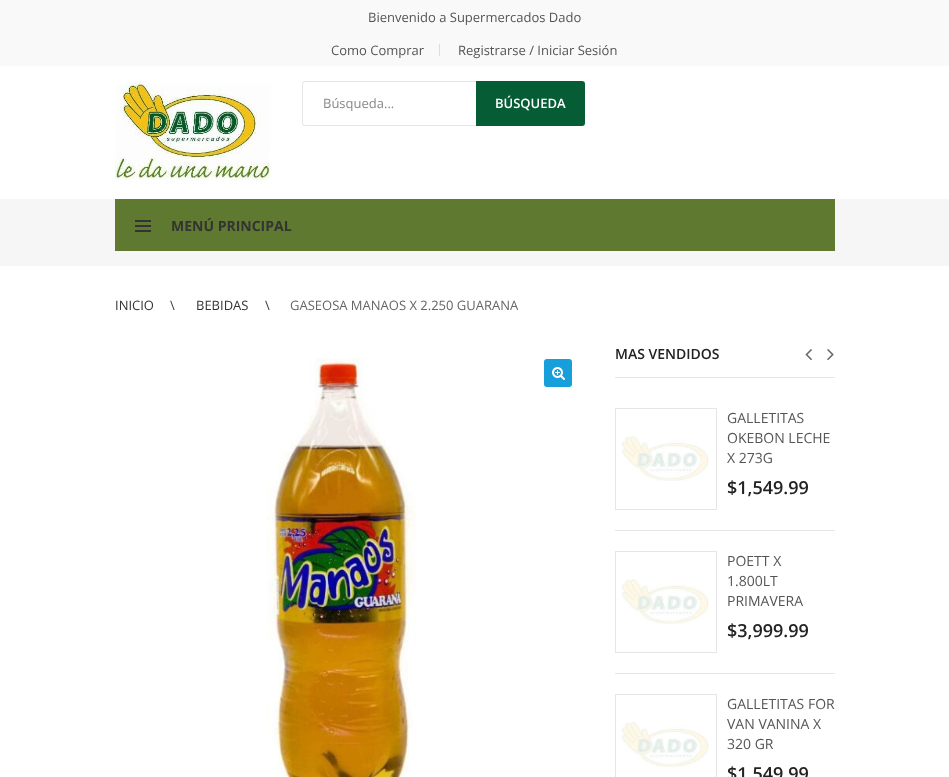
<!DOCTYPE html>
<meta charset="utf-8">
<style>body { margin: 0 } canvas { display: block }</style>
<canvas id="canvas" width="949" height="777"></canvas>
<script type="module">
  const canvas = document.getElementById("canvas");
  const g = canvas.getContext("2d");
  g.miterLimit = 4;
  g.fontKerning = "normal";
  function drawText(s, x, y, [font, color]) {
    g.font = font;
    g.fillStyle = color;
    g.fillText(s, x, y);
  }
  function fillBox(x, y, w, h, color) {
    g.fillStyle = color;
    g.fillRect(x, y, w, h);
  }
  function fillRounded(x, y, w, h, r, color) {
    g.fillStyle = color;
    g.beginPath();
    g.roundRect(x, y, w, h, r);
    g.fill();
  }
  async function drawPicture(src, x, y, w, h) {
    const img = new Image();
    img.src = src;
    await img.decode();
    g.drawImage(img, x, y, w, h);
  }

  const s1 = ["13px Open Sans", "#555555"];
  const s2 = ["13px Open Sans", "#888888"];
  const s3 = ["600 13px Open Sans", "#FFFFFF"];
  const s4 = ["bold 14px Open Sans", "#333333"];
  const s5 = ["13px Open Sans", "#333333"];
  const s6 = ["13px Open Sans", "#666666"];
  const s7 = ["600 14px Open Sans", "#222222"];
  const s8 = ["14px Open Sans", "#555555"];
  const s9 = ["600 18px Open Sans", "#222222"];

  fillBox(0, 0, 949, 777, "#FFFFFF");
  fillBox(0, 0, 949, 66, "#F9F9F9");
  drawText("Bienvenido a Supermercados Dado", 368, 22, s1);
  drawText("Como Comprar", 331, 55, s1);
  fillBox(439, 44, 1, 12, "#DDDDDD");
  drawText("Registrarse / Iniciar Sesión", 458, 55, s1);
  await drawPicture("pic1.png", 115, 81, 157, 103);
  g.fillStyle = "#E6E6E6";
  g.beginPath();
  g.moveTo(305, 81);
  g.lineTo(476, 81);
  g.lineTo(476, 126);
  g.lineTo(305, 126);
  g.bezierCurveTo(303, 126, 302, 125, 302, 123);
  g.lineTo(302, 84);
  g.bezierCurveTo(302, 82, 303, 81, 305, 81);
  g.closePath();
  g.moveTo(305, 82);
  g.lineTo(476, 82);
  g.lineTo(476, 125);
  g.lineTo(305, 125);
  g.bezierCurveTo(304, 125, 303, 124, 303, 123);
  g.lineTo(303, 84);
  g.bezierCurveTo(303, 83, 304, 82, 305, 82);
  g.closePath();
  g.fill("evenodd");
  drawText("Búsqueda...", 323, 108, s2);
  g.fillStyle = "#065C35";
  g.beginPath();
  g.roundRect(476, 81, 109, 45, [0, 3, 3, 0]);
  g.fill();
  drawText("BÚSQUEDA", 495, 108, s3);
  fillBox(0, 199, 949, 67, "#F6F6F6");
  fillBox(115, 199, 720, 52, "#607931");
  fillBox(135, 220, 16, 2, "#333333");
  fillBox(135, 225, 16, 2, "#333333");
  fillBox(135, 230, 16, 2, "#333333");
  drawText("MENÚ PRINCIPAL", 171, 231, s4);
  drawText("INICIO", 115, 310, s5);
  drawText("\\", 170, 310, s5);
  drawText("BEBIDAS", 196, 310, s5);
  drawText("\\", 265, 310, s5);
  drawText("GASEOSA MANAOS X 2.250 GUARANA", 290, 310, s6);
  await drawPicture("pic2.png", 266, 358, 150, 419);
  fillRounded(544, 359, 28, 28, 3, "#169FDA");
  await drawPicture("pic3.png", 552, 367, 13, 13);
  fillBox(615, 377, 220, 1, "#E6E6E6");
  drawText("MAS VENDIDOS", 615, 359, s7);
  await drawPicture("pic4.png", 805, 349, 7, 12);
  await drawPicture("pic5.png", 827, 349, 7, 12);
  fillBox(615, 530, 220, 1, "#E6E6E6");
  g.strokeStyle = "#E6E6E6";
  g.strokeRect(615.5, 408.5, 101, 101);
  await drawPicture("pic6.png", 621, 436, 88, 45);
  drawText("GALLETITAS", 727, 423, s8);
  drawText("OKEBON LECHE", 727, 443, s8);
  drawText("X 273G", 727, 463, s8);
  drawText("$1,549.99", 727, 494, s9);
  fillBox(615, 673, 220, 1, "#E6E6E6");
  g.strokeRect(615.5, 551.5, 101, 101);
  await drawPicture("pic6.png", 621, 579, 88, 45);
  drawText("POETT X", 727, 566, s8);
  drawText("1.800LT", 727, 586, s8);
  drawText("PRIMAVERA", 727, 606, s8);
  drawText("$3,999.99", 727, 637, s9);
  g.strokeRect(615.5, 694.5, 101, 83);
  await drawPicture("pic6.png", 621, 722, 88, 45);
  drawText("GALLETITAS FOR", 727, 709, s8);
  drawText("VAN VANINA X", 727, 729, s8);
  drawText("320 GR", 727, 749, s8);
  drawText("$1,549.99", 727, 780, s9);
</script>
